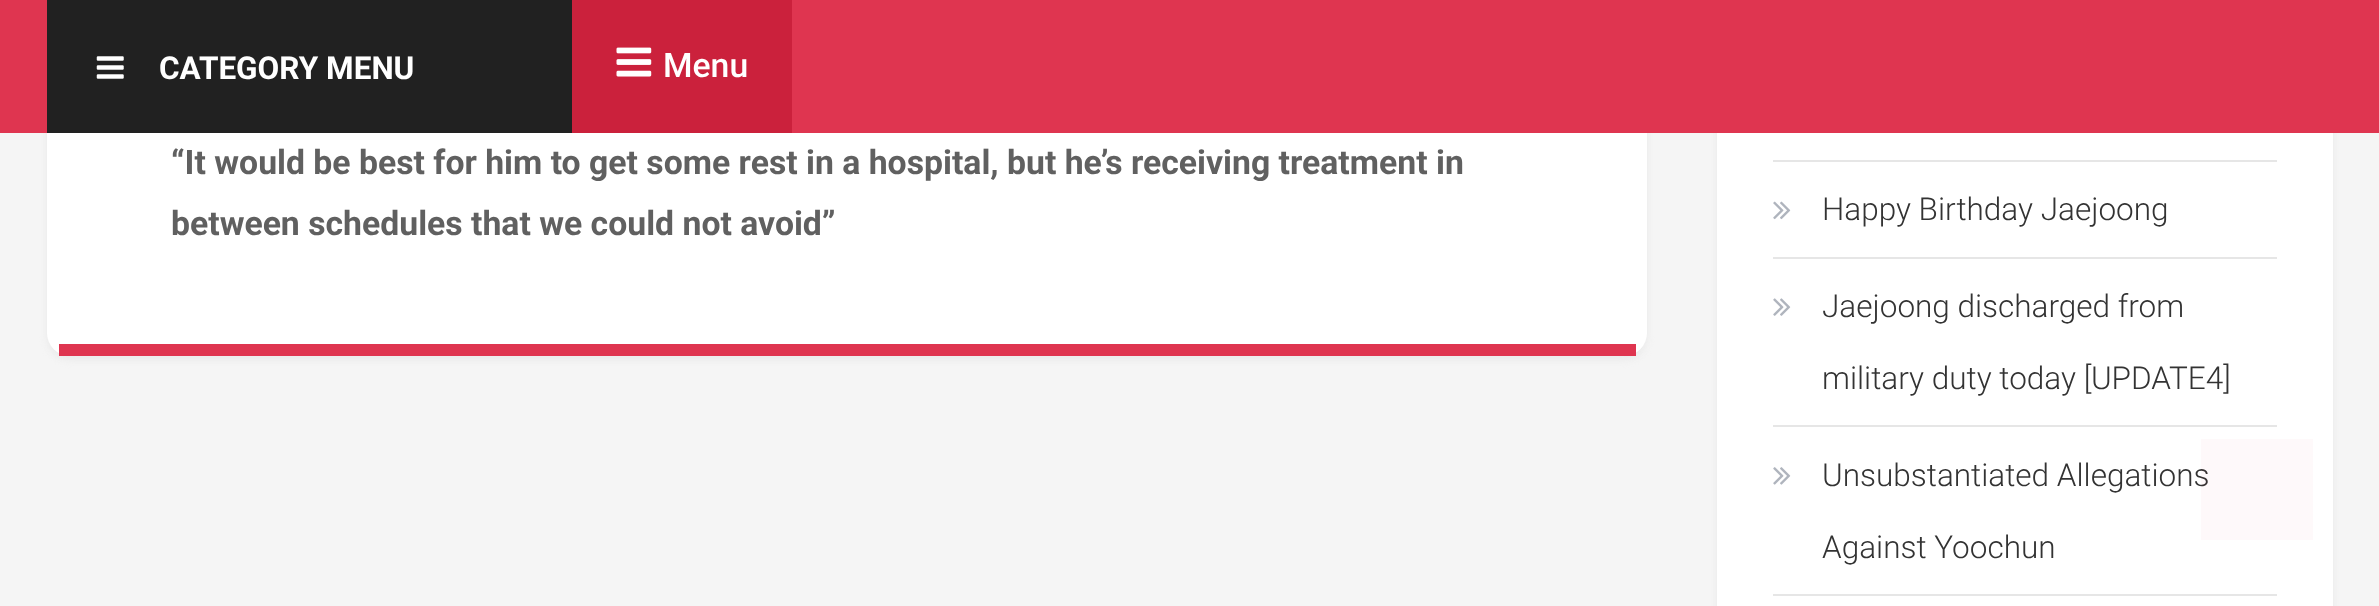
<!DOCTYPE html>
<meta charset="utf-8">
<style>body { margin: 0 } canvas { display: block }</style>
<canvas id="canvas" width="2379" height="606"></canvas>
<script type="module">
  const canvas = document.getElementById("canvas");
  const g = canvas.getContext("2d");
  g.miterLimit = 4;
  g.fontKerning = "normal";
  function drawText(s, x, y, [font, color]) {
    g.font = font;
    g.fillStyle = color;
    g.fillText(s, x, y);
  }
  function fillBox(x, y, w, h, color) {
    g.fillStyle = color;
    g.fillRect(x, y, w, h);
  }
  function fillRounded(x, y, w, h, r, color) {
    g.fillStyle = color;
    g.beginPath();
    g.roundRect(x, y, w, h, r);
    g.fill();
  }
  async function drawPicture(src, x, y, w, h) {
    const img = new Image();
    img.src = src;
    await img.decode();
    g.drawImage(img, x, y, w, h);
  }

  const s1 = ["bold 31.5px Roboto", "#FFFFFF"];
  const s2 = ["500 33.75px Roboto", "#FFFFFF"];
  const s3 = ["bold 33.75px Roboto", "#606060"];
  const s4 = ["300 31.5px Roboto", "#333333"];

  fillBox(0, 0, 2379, 606, "#F5F5F5");
  g.fillStyle = "#EAEAEA";
  g.filter = "blur(3.5px)";
  g.beginPath();
  g.roundRect(47, -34, 1600, 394, 23);
  g.fill();
  g.filter = "none";
  fillRounded(47, -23, 1600, 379, 23, "#FFFFFF");
  g.fillStyle = "#EAEAEA";
  g.filter = "blur(3.5px)";
  g.beginPath();
  g.roundRect(1717, -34, 616, 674, 23);
  g.fill();
  g.filter = "none";
  fillBox(0, 0, 2379, 133, "#DF3550");
  fillBox(47, 0, 525, 133, "#212121");
  await drawPicture("pic1.png", 96, 56, 28, 23);
  drawText("CATEGORY MENU", 159, 79, s1);
  fillBox(572, 0, 220, 133, "#CB213C");
  await drawPicture("pic2.png", 616, 47, 36, 30);
  drawText("Menu", 663, 77, s2);
  fillBox(59, 344, 1577, 12, "#DF3550");
  drawText("“It would be best for him to get some rest in a hospital, but he’s receiving treatment in", 171, 174, s3);
  drawText("between schedules that we could not avoid”", 171, 235, s3);
  fillBox(1717, 133, 616, 473, "#FFFFFF");
  fillBox(1773, 160, 504, 2, "#E6E6E6");
  fillBox(1773, 257, 504, 2, "#E6E6E6");
  await drawPicture("pic3.png", 1773, 201, 18, 19);
  drawText("Happy Birthday Jaejoong", 1822, 220, s4);
  fillBox(1773, 425, 504, 2, "#E6E6E6");
  await drawPicture("pic4.png", 1773, 298, 18, 18);
  drawText("Jaejoong discharged from", 1822, 317, s4);
  drawText("military duty today [UPDATE4]", 1822, 389, s4);
  fillBox(1773, 594, 504, 2, "#E6E6E6");
  await drawPicture("pic5.png", 1773, 467, 18, 18);
  drawText("Unsubstantiated Allegations", 1822, 486, s4);
  drawText("Against Yoochun", 1822, 558, s4);
  fillBox(2201, 439, 112, 101, "rgba(223, 53, 80, 0.03)");
</script>
